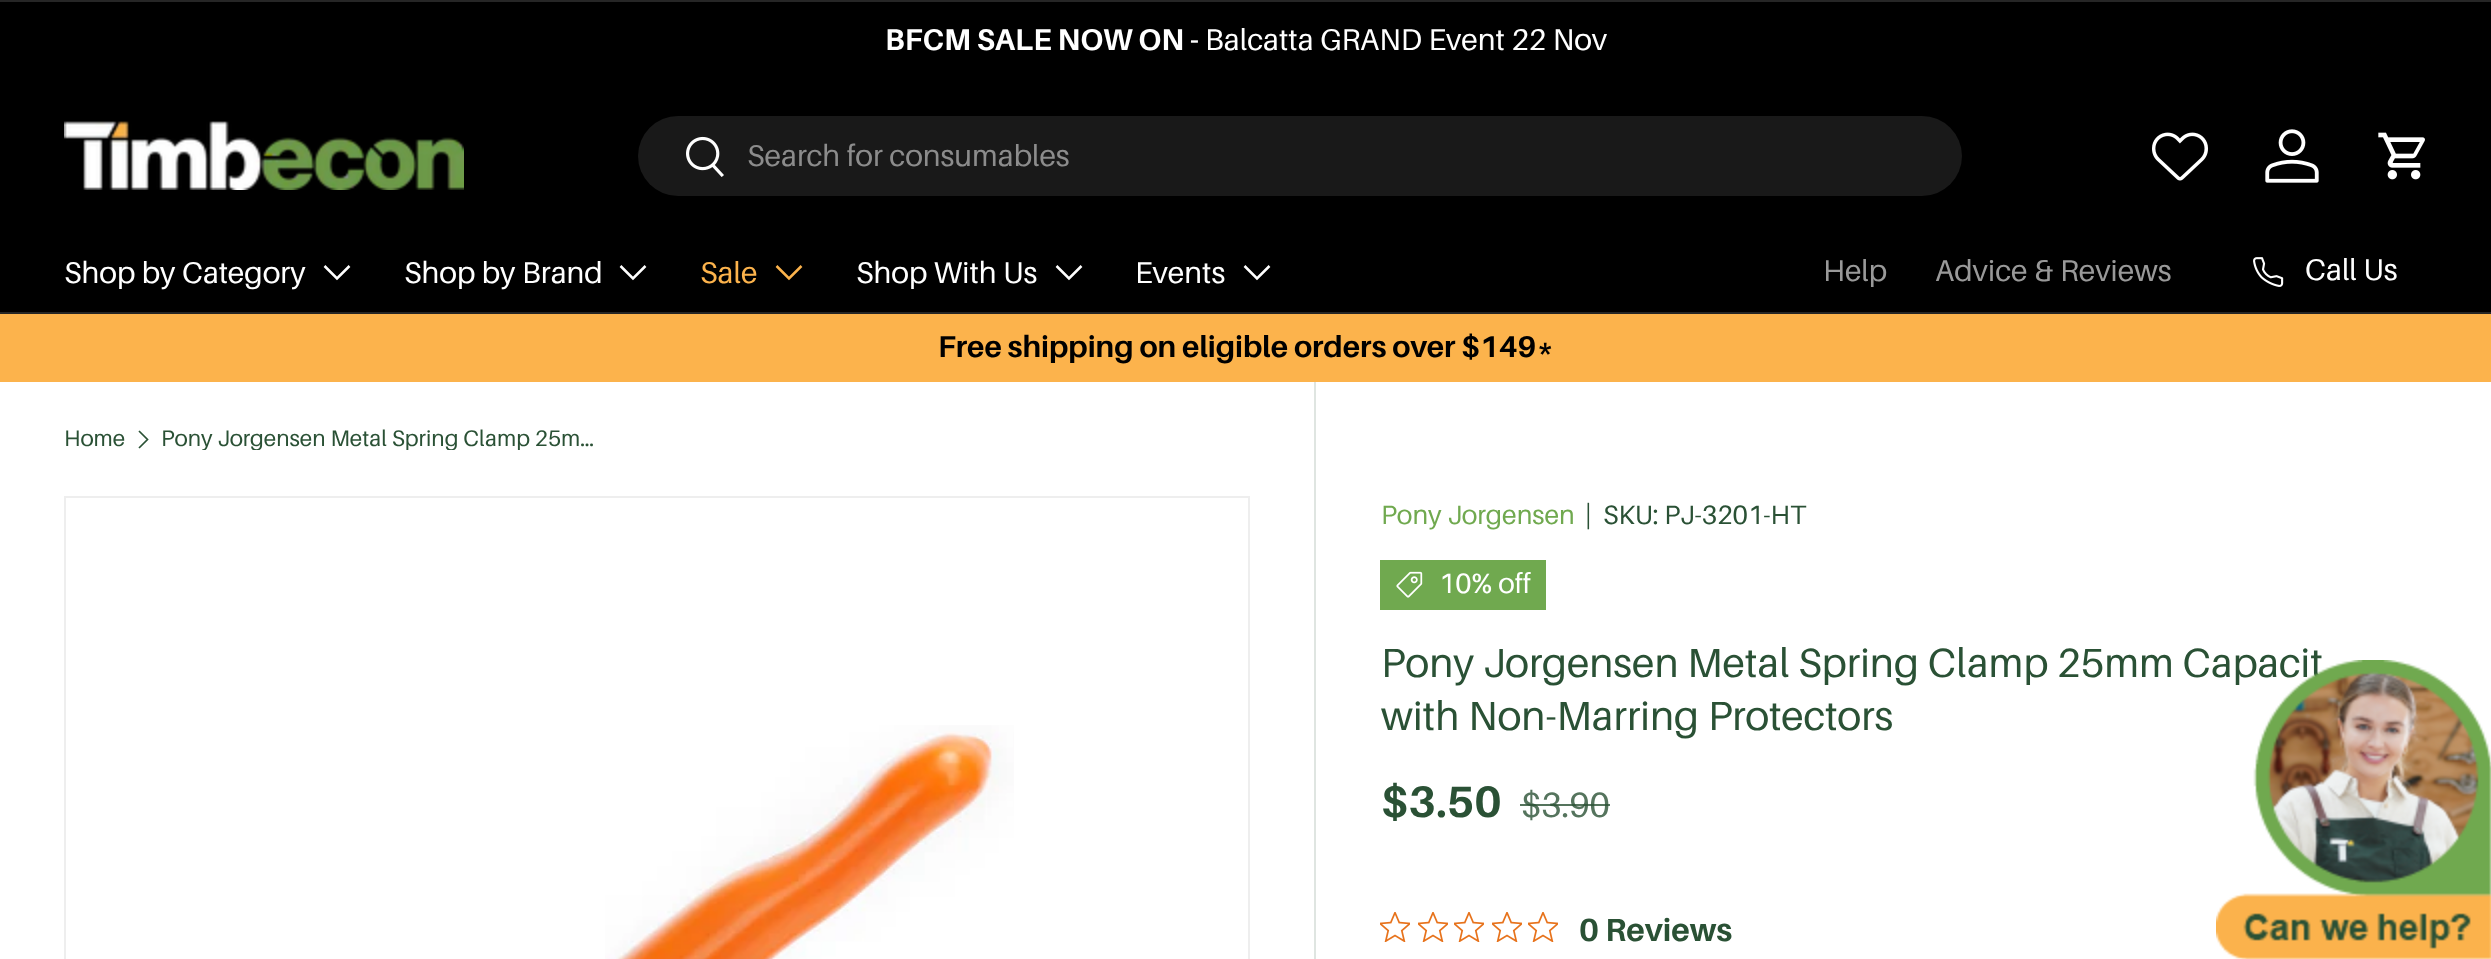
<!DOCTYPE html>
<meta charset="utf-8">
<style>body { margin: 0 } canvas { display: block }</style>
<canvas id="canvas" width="2491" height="959"></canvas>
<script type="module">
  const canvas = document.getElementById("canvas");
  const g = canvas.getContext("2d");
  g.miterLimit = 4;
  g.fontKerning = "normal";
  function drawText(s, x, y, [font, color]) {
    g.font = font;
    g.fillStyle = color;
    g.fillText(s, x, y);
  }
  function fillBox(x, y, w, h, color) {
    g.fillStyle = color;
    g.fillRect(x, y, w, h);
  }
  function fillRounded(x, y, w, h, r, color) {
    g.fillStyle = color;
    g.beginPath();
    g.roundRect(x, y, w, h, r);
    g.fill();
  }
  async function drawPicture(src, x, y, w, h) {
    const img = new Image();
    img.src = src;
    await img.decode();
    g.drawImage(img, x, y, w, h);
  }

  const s1 = ["bold 30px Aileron", "#FFFFFF"];
  const s2 = ["30px Aileron", "#FFFFFF"];
  const s3 = ["30px Aileron", "#8C8C8C"];
  const s4 = ["30px Aileron", "#FCB34C"];
  const s5 = ["30px Aileron", "#999999"];
  const s6 = ["bold 30px Aileron", "#000000"];
  const s7 = ["22.5px Aileron", "#2A5135"];
  const s8 = ["26.5px Aileron", "#70A94F"];
  const s9 = ["26.5px Aileron", "#2A5135"];
  const s10 = ["28px Aileron", "#FFFFFF"];
  const s11 = ["40.7px Aileron", "#2A5135"];
  const s12 = ["bold 44px Aileron", "#2A5135"];
  const s13 = ["35px Aileron", "#55745D"];
  const s14 = ["bold 32px Aileron", "#2A5135"];

  fillBox(0, 0, 2491, 959, "#FFFFFF");
  fillBox(0, 2, 2491, 310, "#000000");
  fillBox(0, 0, 2491, 2, "#262626");
  drawText("BFCM SALE NOW ON -", 885, 50, s1);
  drawText("Balcatta GRAND Event 22 Nov", 1205, 50, s2);
  fillBox(0, 312, 2491, 2, "#262626");
  await drawPicture("pic1.png", 64, 121, 400, 69);
  fillRounded(638, 116, 1324, 80, 40, "#191919");
  await drawPicture("pic2.png", 686, 136, 38, 41);
  drawText("Search for consumables", 747, 166, s3);
  await drawPicture("pic3.png", 2152, 132, 56, 49);
  await drawPicture("pic4.png", 2265, 129, 54, 54);
  await drawPicture("pic5.png", 2378, 132, 47, 48);
  drawText("Shop by Category", 64, 283, s2);
  g.beginPath();
  g.moveTo(349.5, 266);
  g.lineTo(337, 278.5);
  g.lineTo(324.5, 266);
  g.strokeStyle = "#FFFFFF";
  g.lineWidth = 2.5;
  g.stroke();
  drawText("Shop by Brand", 404, 283, s2);
  g.beginPath();
  g.moveTo(645.5, 266);
  g.lineTo(633, 278.5);
  g.lineTo(620.5, 266);
  g.stroke();
  drawText("Sale", 700, 283, s4);
  g.beginPath();
  g.moveTo(801.5, 266);
  g.lineTo(789, 278.5);
  g.lineTo(776.5, 266);
  g.strokeStyle = "#FCB34C";
  g.stroke();
  drawText("Shop With Us", 856, 283, s2);
  g.beginPath();
  g.moveTo(1081.5, 266);
  g.lineTo(1069, 278.5);
  g.lineTo(1056.5, 266);
  g.strokeStyle = "#FFFFFF";
  g.stroke();
  drawText("Events", 1135, 283, s2);
  g.beginPath();
  g.moveTo(1269.5, 266);
  g.lineTo(1257, 278.5);
  g.lineTo(1244.5, 266);
  g.stroke();
  drawText("Help", 1823, 281, s5);
  drawText("Advice & Reviews", 1935, 281, s5);
  await drawPicture("pic6.png", 2253, 257, 31, 30);
  drawText("Call Us", 2305, 280, s2);
  fillBox(0, 314, 2491, 68, "#FCB34C");
  drawText("Free shipping on eligible orders over $149*", 938, 357, s6);
  drawText("Home", 64, 446, s7);
  g.beginPath();
  g.moveTo(139, 431);
  g.lineTo(147.5, 439.5);
  g.lineTo(139, 448);
  g.strokeStyle = "#2A5135";
  g.lineWidth = 1.7;
  g.stroke();
  g.save();
  g.beginPath();
  g.rect(160, 428, 450, 22);
  g.clip();
  drawText("Pony Jorgensen Metal Spring Clamp 25m…", 161, 446, s7);
  g.restore();
  g.strokeStyle = "#EEEEEE";
  g.lineWidth = 2;
  g.strokeRect(65, 497, 1184, 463);
  await drawPicture("pic7.png", 605, 725, 409, 234);
  fillBox(1314, 382, 2, 577, "#DFE5E1");
  drawText("Pony Jorgensen", 1381, 524, s8);
  drawText("|", 1585, 524, s9);
  drawText("SKU: PJ-3201-HT", 1603, 524, s9);
  fillBox(1380, 560, 166, 50, "#70A94F");
  await drawPicture("pic8.png", 1396, 571, 27, 27);
  drawText("10% off", 1439, 593, s10);
  drawText("Pony Jorgensen Metal Spring Clamp 25mm Capacit", 1381, 677, s11);
  drawText("with Non-Marring Protectors", 1381, 730, s11);
  drawText("$3.50", 1381, 817, s12);
  drawText("$3.90", 1521, 817, s13);
  fillBox(1520, 804, 90, 2, "rgba(42, 81, 53, 0.8)");
  await drawPicture("pic9.png", 1380, 912, 30, 30);
  await drawPicture("pic9.png", 1418, 912, 30, 30);
  await drawPicture("pic9.png", 1454, 912, 30, 30);
  await drawPicture("pic9.png", 1492, 912, 30, 30);
  await drawPicture("pic9.png", 1528, 912, 30, 30);
  drawText("0 Reviews", 1579, 941, s14);
  await drawPicture("pic10.png", 2216, 660, 275, 299);
</script>
